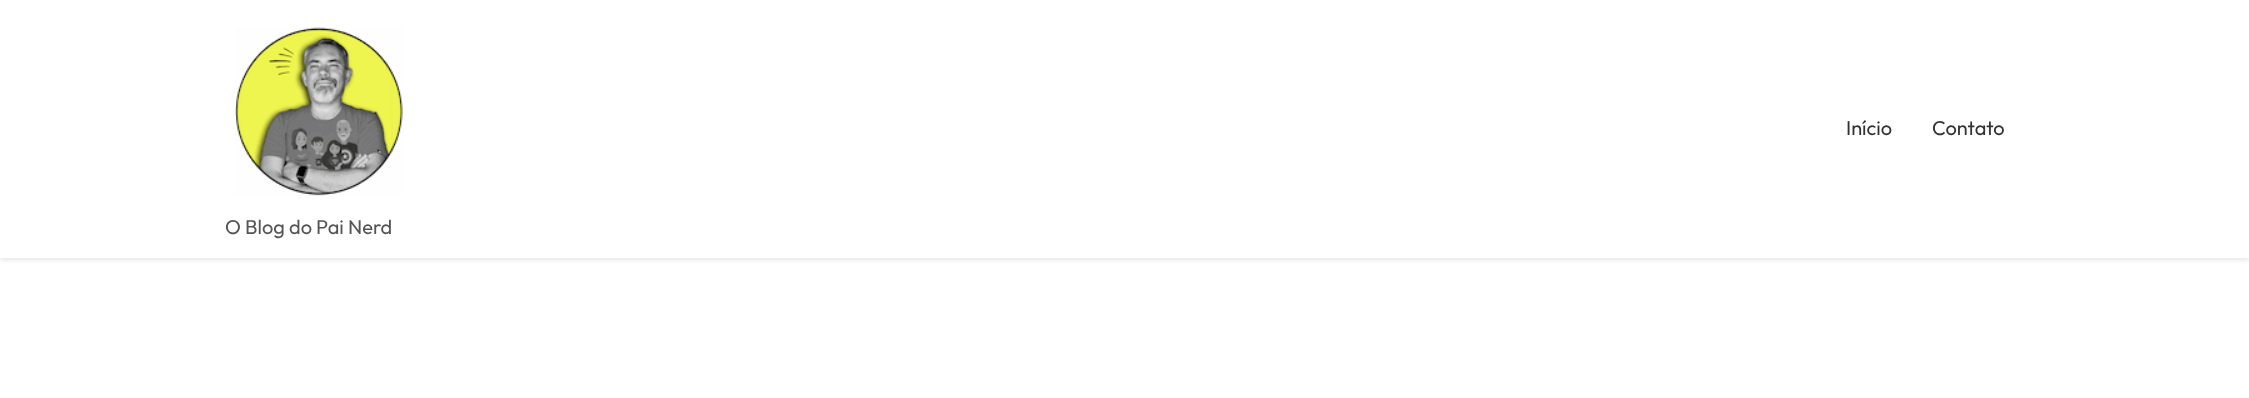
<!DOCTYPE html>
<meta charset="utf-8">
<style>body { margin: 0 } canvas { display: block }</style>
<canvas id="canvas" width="2249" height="398"></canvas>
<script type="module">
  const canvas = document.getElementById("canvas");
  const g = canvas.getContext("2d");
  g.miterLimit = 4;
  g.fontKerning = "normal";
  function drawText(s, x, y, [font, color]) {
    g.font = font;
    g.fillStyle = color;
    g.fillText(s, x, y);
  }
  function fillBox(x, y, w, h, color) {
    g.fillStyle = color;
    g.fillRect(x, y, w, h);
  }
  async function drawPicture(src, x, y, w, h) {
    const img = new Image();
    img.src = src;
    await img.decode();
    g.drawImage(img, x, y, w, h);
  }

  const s1 = ["20px Outfit", "#333333"];
  const s2 = ["20px Outfit", "#555555"];

  fillBox(0, 0, 2249, 398, "#FFFFFF");
  g.fillStyle = "rgba(0, 0, 0, 0.1)";
  g.filter = "blur(2.5px)";
  g.beginPath();
  g.rect(0, 3, 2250, 257);
  g.fill();
  g.filter = "none";
  fillBox(0, 0, 2249, 258, "#FFFFFF");
  drawText("Início", 1846, 135, s1);
  drawText("Contato", 1932, 135, s1);
  await drawPicture("pic1.png", 235, 27, 168, 169);
  drawText("O Blog do Pai Nerd", 225, 234, s2);
</script>
